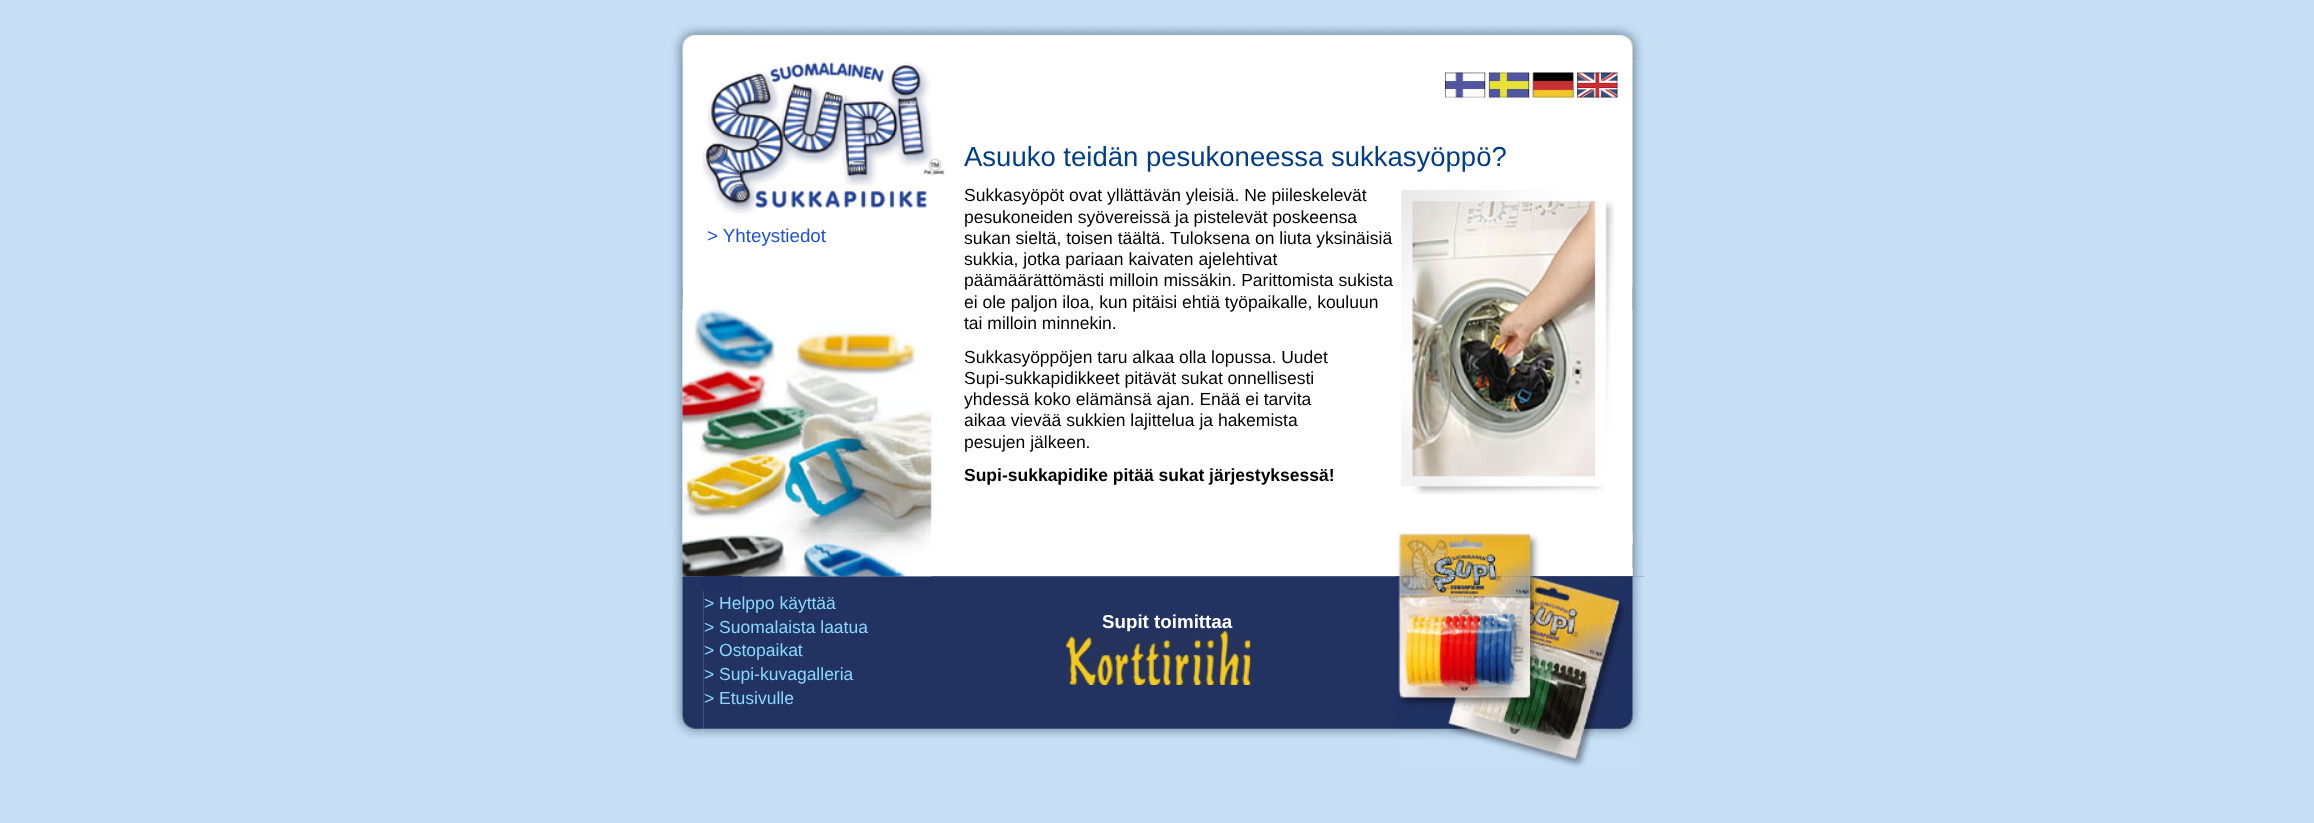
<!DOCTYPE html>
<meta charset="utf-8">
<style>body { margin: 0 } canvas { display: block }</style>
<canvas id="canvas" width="2314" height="823"></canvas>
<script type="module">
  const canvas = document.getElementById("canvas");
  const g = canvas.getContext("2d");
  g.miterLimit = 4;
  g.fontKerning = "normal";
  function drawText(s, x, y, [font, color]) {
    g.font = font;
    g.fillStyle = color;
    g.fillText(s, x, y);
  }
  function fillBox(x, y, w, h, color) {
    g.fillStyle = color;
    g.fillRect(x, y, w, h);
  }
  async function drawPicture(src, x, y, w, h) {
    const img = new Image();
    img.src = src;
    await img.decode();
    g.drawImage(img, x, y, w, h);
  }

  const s1 = ["18.75px Liberation Sans", "#2150DE"];
  const s2 = ["27.5px Liberation Sans", "#003E8A"];
  const s3 = ["17.5px Liberation Sans", "#000000"];
  const s4 = ["bold 17.5px Liberation Sans", "#000000"];
  const s5 = ["17.5px Liberation Sans", "#87D7FF"];
  const s6 = ["bold 18.75px Liberation Sans", "#FFFFFF"];

  fillBox(0, 0, 2314, 823, "#C6DFF5");
  await drawPicture("pic1.png", 670, 25, 610, 37);
  await drawPicture("pic5.png", 670, 61, 13, 473);
  await drawPicture("pic3.png", 1280, 25, 365, 37);
  fillBox(683, 61, 950, 473, "#FFFFFF");
  await drawPicture("pic2.png", 670, 24, 29, 38);
  await drawPicture("pic11.png", 1632, 61, 13, 473);
  await drawPicture("pic4.png", 1616, 24, 29, 38);
  await drawPicture("pic7.png", 682, 301, 250, 233);
  await drawPicture("pic6.png", 682, 286, 1, 24);
  await drawPicture("pic8.png", 702, 62, 243, 152);
  drawText("> Yhteystiedot", 707, 242, s1);
  await drawPicture("pic9.png", 1445, 72, 173, 26);
  drawText("Asuuko teidän pesukoneessa sukkasyöppö?", 964, 166, s2);
  drawText("Sukkasyöpöt ovat yllättävän yleisiä. Ne piileskelevät", 964, 201, s3);
  await drawPicture("pic10.png", 1401, 190, 214, 305);
  drawText("pesukoneiden syövereissä ja pistelevät poskeensa", 964, 223, s3);
  drawText("sukan sieltä, toisen täältä.", 964, 244, s3);
  drawText("Tuloksena on liuta yksinäisiä", 1170, 244, s3);
  drawText("sukkia, jotka pariaan kaivaten ajelehtivat", 964, 265, s3);
  drawText("päämäärättömästi milloin missäkin. Parittomista sukista", 964, 286, s3);
  drawText("ei ole paljon iloa, kun pitäisi ehtiä työpaikalle, kouluun", 964, 308, s3);
  drawText("tai milloin minnekin.", 964, 329, s3);
  drawText("Sukkasyöppöjen taru alkaa olla lopussa. Uudet", 964, 363, s3);
  drawText("Supi-sukkapidikkeet pitävät sukat onnellisesti", 964, 384, s3);
  drawText("yhdessä koko elämänsä ajan. Enää ei tarvita", 964, 405, s3);
  drawText("aikaa vievää sukkien lajittelua ja hakemista", 964, 426, s3);
  drawText("pesujen jälkeen.", 964, 448, s3);
  drawText("Supi-sukkapidike pitää sukat järjestyksessä!", 964, 481, s4);
  await drawPicture("pic12.png", 1632, 286, 1, 24);
  await drawPicture("pic13.png", 672, 533, 11, 44);
  await drawPicture("pic14.png", 682, 544, 1, 24);
  fillBox(931, 534, 702, 42, "#FFFFFF");
  await drawPicture("pic19.png", 672, 576, 32, 163);
  await drawPicture("pic20.png", 703, 576, 692, 162);
  await drawPicture("pic15.png", 682, 533, 250, 44);
  await drawPicture("pic17.png", 1632, 533, 11, 44);
  await drawPicture("pic22.png", 1395, 576, 250, 162);
  await drawPicture("pic16.png", 1396, 533, 237, 44);
  await drawPicture("pic18.png", 1632, 543, 1, 25);
  fillBox(703, 576, 39, 15, "#213163");
  drawText("> Helppo käyttää", 704, 609, s5);
  drawText("> Suomalaista laatua", 704, 633, s5);
  drawText("> Ostopaikat", 704, 656, s5);
  drawText("> Supi-kuvagalleria", 704, 680, s5);
  drawText("> Etusivulle", 704, 704, s5);
  drawText("Supit toimittaa", 1102, 628, s6);
  await drawPicture("pic21.png", 1066, 631, 185, 54);
  await drawPicture("pic23.png", 1396, 576, 249, 192);
</script>
